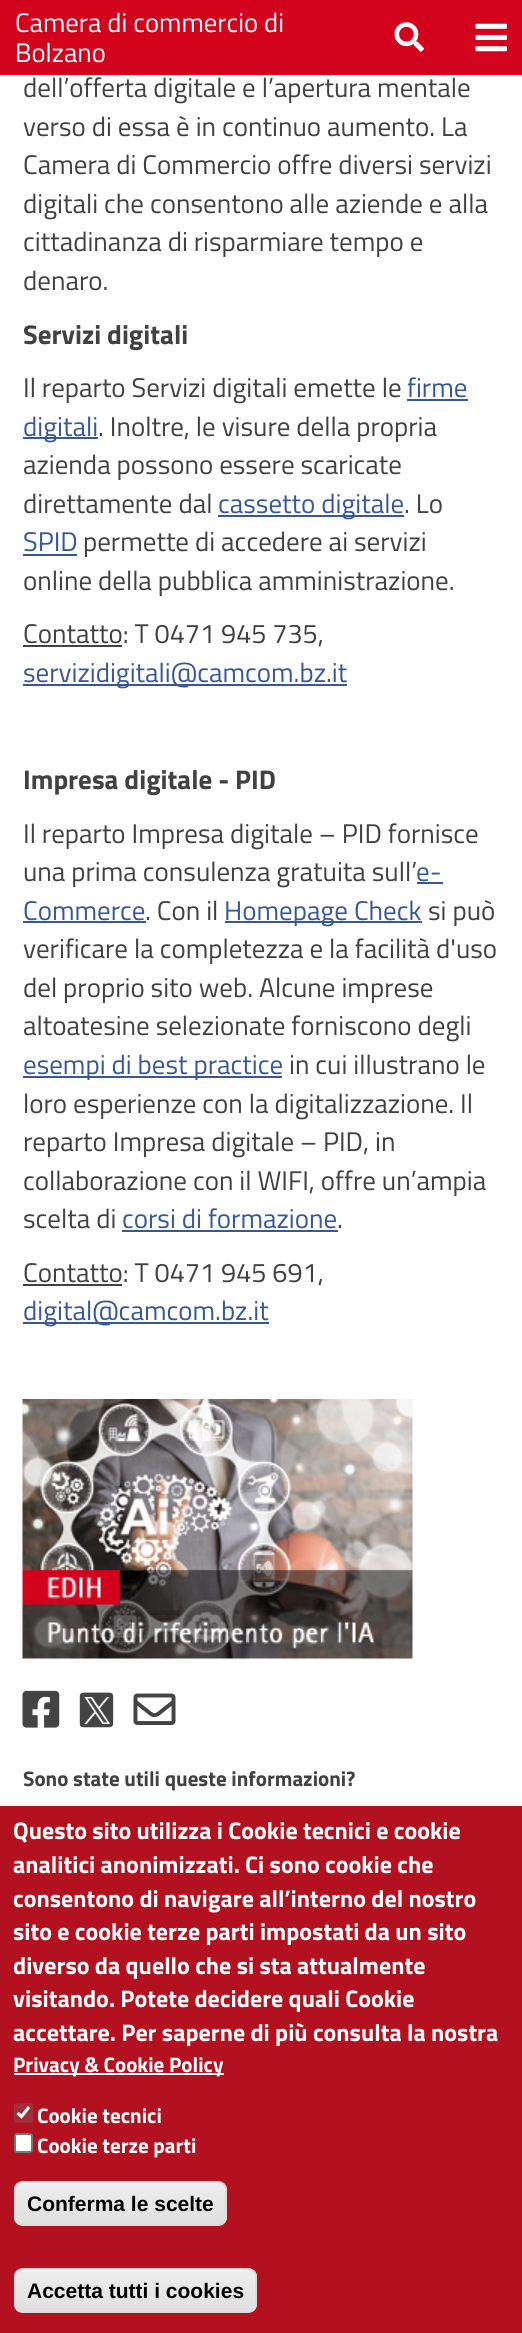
import math
import cairo

surface = cairo.ImageSurface(cairo.Format.RGB24, 522, 2333)
ctx = cairo.Context(surface)
options = cairo.FontOptions()
options.set_hint_metrics(cairo.HintMetrics.OFF)
options.set_hint_style(cairo.HintStyle.NONE)
ctx.set_font_options(options)
ctx.set_miter_limit(4)


def ink(r, g, b):
    ctx.set_source_rgb(r / 255, g / 255, b / 255)


def write(x, y, s, family, size, color, bold=False, italic=False):
    ctx.select_font_face(family, cairo.FontSlant.ITALIC if italic else cairo.FontSlant.NORMAL, cairo.FontWeight.BOLD if bold else cairo.FontWeight.NORMAL)
    ctx.set_font_size(size)
    ink(*color)
    ctx.move_to(x, y)
    ctx.show_text(s)


def block(x, y, w, h, *color):
    ink(*color)
    ctx.rectangle(x, y, w, h)
    ctx.fill()


def round_path(x, y, w, h, r):
    ctx.new_sub_path()
    for i, (u, v) in enumerate([(x + w - r, y + h - r), (x + r, y + h - r), (x + r, y + r), (x + w - r, y + r)]):
        ctx.arc(u, v, r, i * math.pi / 2, (i + 1) * math.pi / 2)
    ctx.close_path()


def paste(path, x, y, w, h):
    ctx.save()
    ctx.set_source_surface(cairo.ImageSurface.create_from_png(path), x, y)
    ctx.rectangle(x, y, w, h)
    ctx.fill()
    ctx.restore()


s1 = dict(family="Titillium Web", size=26.75, color=(255, 255, 255))
s2 = dict(family="Titillium Web", size=27, color=(65, 65, 65))
s3 = dict(family="Titillium Web", size=27, color=(65, 65, 65), bold=True)
s4 = dict(family="Titillium Web", size=27, color=(54, 88, 153))
s5 = dict(family="Titillium Web", size=21, color=(65, 65, 65), bold=True)
s6 = dict(family="Titillium Web", size=24, color=(255, 255, 255), bold=True)
s7 = dict(family="Titillium Web", size=21, color=(255, 255, 255), bold=True)
s8 = dict(family="Liberation Sans", size=21, color=(0, 0, 0), bold=True)

ink(255, 255, 255)
ctx.paint()
block(0, 0, 522, 75, 211, 2, 29)
write(15, 32, "Camera di commercio di", **s1)
write(15, 62, "Bolzano", **s1)
paste("pic1.png", 394, 22, 30, 30)
paste("pic2.png", 475, 23, 32, 29)
write(23, 97, "dell’offerta digitale e l’apertura mentale", **s2)
write(23, 136, "verso di essa è in continuo aumento. La", **s2)
write(23, 174, "Camera di Commercio offre diversi servizi", **s2)
write(23, 213, "digitali che consentono alle aziende e alla", **s2)
write(23, 251, "cittadinanza di risparmiare tempo e", **s2)
write(23, 290, "denaro.", **s2)
write(23, 344, "Servizi digitali", **s3)
write(23, 397, "Il reparto Servizi digitali emette le", **s2)
write(407, 397, "firme", **s4)
block(407, 399, 61, 2, 54, 88, 153)
block(23, 437, 75, 2, 54, 88, 153)
write(23, 436, "digitali", **s4)
write(98, 436, ". Inoltre, le visure della propria", **s2)
write(23, 474, "azienda possono essere scaricate", **s2)
write(23, 513, "direttamente dal", **s2)
block(218, 515, 186, 2, 54, 88, 153)
write(218, 513, "cassetto digitale", **s4)
write(404, 513, ". Lo", **s2)
write(23, 551, "SPID", **s4)
block(23, 554, 54, 2, 54, 88, 153)
write(83, 551, "permette di accedere ai servizi", **s2)
write(23, 590, "online della pubblica amministrazione.", **s2)
block(23, 645, 99, 2, 65, 65, 65)
write(23, 643, "Contatto: T 0471 945 735,", **s2)
block(23, 684, 324, 2, 54, 88, 153)
write(23, 682, "servizidigitali@camcom.bz.it", **s4)
write(23, 789, "Impresa digitale - PID", **s3)
write(23, 843, "Il reparto Impresa digitale – PID fornisce", **s2)
write(23, 881, "una prima consulenza gratuita sull’", **s2)
write(416, 881, "e-", **s4)
block(417, 882, 26, 2, 54, 88, 153)
write(23, 920, "Commerce", **s4)
block(23, 921, 123, 2, 54, 88, 153)
write(145, 920, ". Con il", **s2)
block(225, 921, 197, 2, 54, 88, 153)
write(224, 920, "Homepage Check", **s4)
write(428, 920, "si può", **s2)
write(23, 958, "verificare la completezza e la facilità d'uso", **s2)
write(23, 997, "del proprio sito web. Alcune imprese", **s2)
write(23, 1035, "altoatesine selezionate forniscono degli", **s2)
block(23, 1076, 259, 2, 54, 88, 153)
write(23, 1074, "esempi di best practice", **s4)
write(289, 1074, "in cui illustrano le", **s2)
write(23, 1113, "loro esperienze con la digitalizzazione. Il", **s2)
write(23, 1151, "reparto Impresa digitale – PID, in", **s2)
write(23, 1190, "collaborazione con il WIFI, offre un’ampia", **s2)
write(23, 1228, "scelta di", **s2)
write(122, 1228, "corsi di formazione", **s4)
block(122, 1230, 216, 2, 54, 88, 153)
write(337, 1228, ".", **s2)
block(23, 1284, 99, 2, 65, 65, 65)
write(23, 1282, "Contatto: T 0471 945 691,", **s2)
block(23, 1322, 246, 2, 54, 88, 153)
write(23, 1320, "digital@camcom.bz.it", **s4)
paste("pic3.png", 22, 1399, 391, 260)
paste("pic4.png", 22, 1690, 38, 38)
paste("pic5.png", 79, 1692, 35, 36)
paste("pic6.png", 133, 1693, 43, 32)
write(23, 1786, "Sono state utili queste informazioni?", **s5)
block(0, 1806, 522, 527, 179, 17, 32)
write(13, 1839, "Questo sito utilizza i Cookie tecnici e cookie", **s6)
write(13, 1873, "analitici anonimizzati. Ci sono cookie che", **s6)
write(13, 1907, "consentono di navigare all’interno del nostro", **s6)
write(13, 1940, "sito e cookie terze parti impostati da un sito", **s6)
write(13, 1974, "diverso da quello che si sta attualmente", **s6)
write(13, 2007, "visitando. Potete decidere quali Cookie", **s6)
write(13, 2041, "accettare. Per saperne di più consulta la nostra", **s6)
block(14, 2073, 210, 2, 255, 255, 255)
write(13, 2072, "Privacy & Cookie Policy", **s7)
ink(161, 47, 58)
round_path(14, 2103, 19, 20, 3)
ctx.fill()
ctx.new_path()
ctx.move_to(17.5, 2113)
ctx.line_to(21.5, 2116.5)
ctx.line_to(29, 2107)
ink(255, 255, 255)
ctx.set_line_width(3.1)
ctx.stroke()
write(37, 2123, "Cookie tecnici", **s7)
round_path(15, 2134, 17, 18, 2)
ctx.fill_preserve()
ink(118, 118, 118)
ctx.set_line_width(2)
ctx.stroke()
write(37, 2153, "Cookie terze parti", **s7)
ctx.save()
round_path(14, 2181, 213, 45, 9)
ctx.clip()
gradient = cairo.LinearGradient(120, 2183, 120, 2225)
gradient.add_color_stop_rgba(0.05, 0.929, 0.929, 0.929, 1)
gradient.add_color_stop_rgba(1, 0.875, 0.875, 0.875, 1)
ctx.set_source(gradient)
ctx.rectangle(14, 2183, 213, 42)
ctx.fill()
ctx.restore()
ctx.new_path()
ctx.move_to(22, 2184)
ctx.line_to(218, 2184)
ctx.curve_to(222, 2184, 225, 2187, 225, 2192)
ctx.line_to(225, 2191)
ctx.curve_to(225, 2187, 221, 2183, 217, 2183)
ctx.line_to(23, 2183)
ctx.curve_to(19, 2183, 15, 2187, 15, 2191)
ctx.line_to(15, 2192)
ctx.curve_to(15, 2187, 18, 2184, 22, 2184)
ctx.close_path()
ctx.fill()
round_path(15, 2182, 211, 43, 8)
ink(220, 220, 220)
ctx.stroke()
write(27, 2211, "Conferma le scelte", **s8)
ctx.save()
round_path(14, 2268, 243, 45, 9)
ctx.clip()
gradient = cairo.LinearGradient(135, 2270, 135, 2312)
gradient.add_color_stop_rgba(0.05, 0.929, 0.929, 0.929, 1)
gradient.add_color_stop_rgba(1, 0.875, 0.875, 0.875, 1)
ctx.set_source(gradient)
ctx.rectangle(14, 2270, 243, 42)
ctx.fill()
ctx.restore()
ink(255, 255, 255)
ctx.new_path()
ctx.move_to(22, 2271)
ctx.line_to(248, 2271)
ctx.curve_to(252, 2271, 255, 2274, 255, 2278)
ctx.curve_to(255, 2274, 251, 2270, 247, 2270)
ctx.line_to(23, 2270)
ctx.curve_to(19, 2270, 15, 2274, 15, 2278)
ctx.curve_to(15, 2274, 18, 2271, 22, 2271)
ctx.close_path()
ctx.fill()
round_path(15, 2269, 241, 43, 8)
ink(220, 220, 220)
ctx.stroke()
write(27, 2298, "Accetta tutti i cookies", **s8)
surface.write_to_png("screenshot.png")
